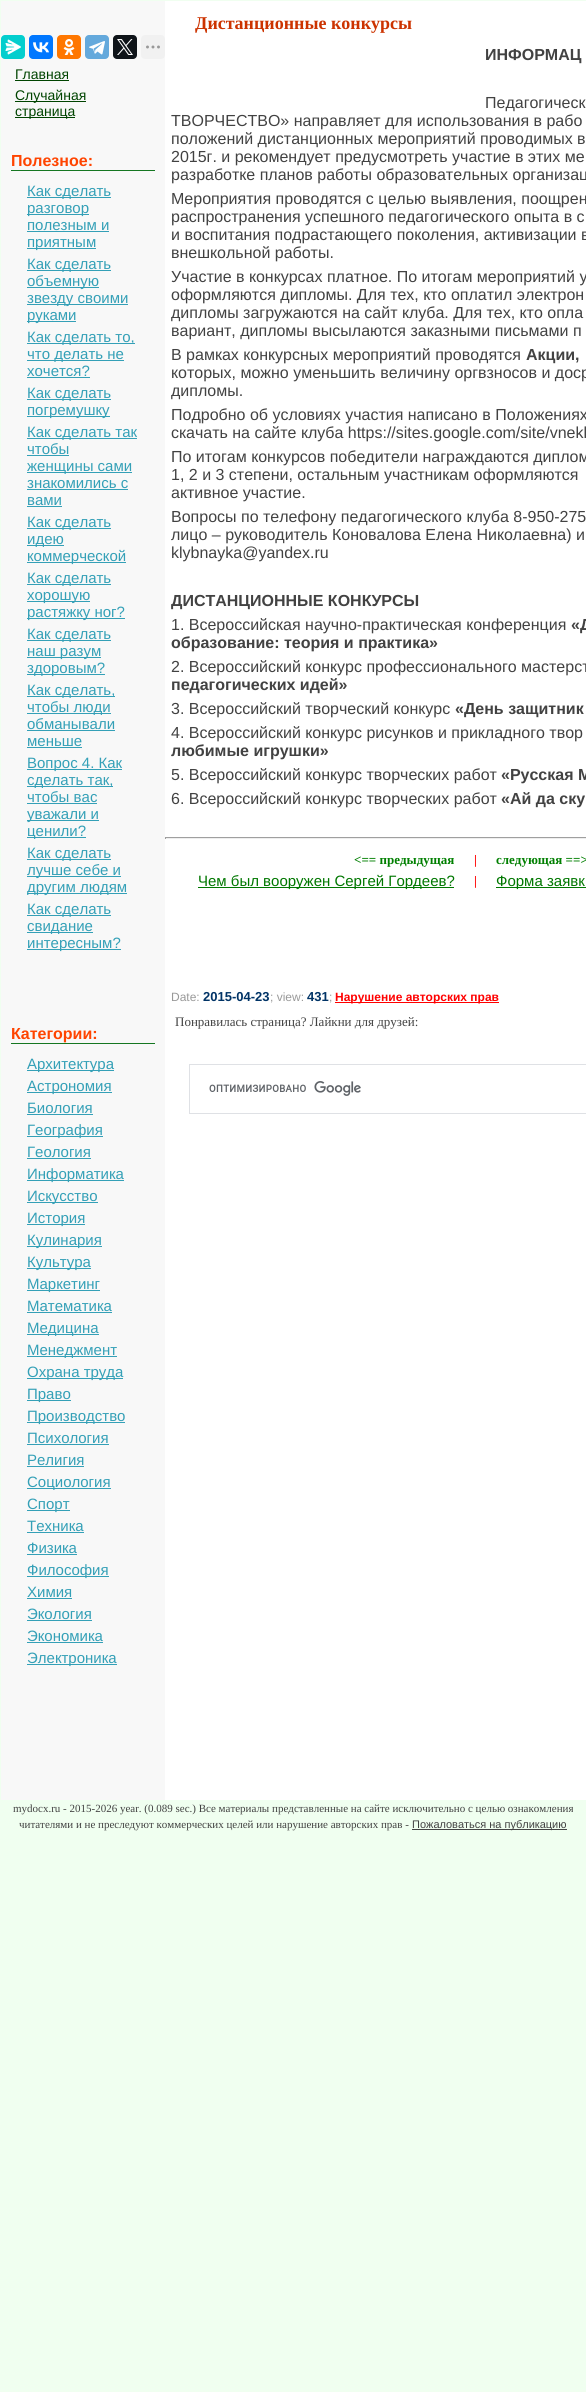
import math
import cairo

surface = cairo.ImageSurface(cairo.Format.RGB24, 586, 2392)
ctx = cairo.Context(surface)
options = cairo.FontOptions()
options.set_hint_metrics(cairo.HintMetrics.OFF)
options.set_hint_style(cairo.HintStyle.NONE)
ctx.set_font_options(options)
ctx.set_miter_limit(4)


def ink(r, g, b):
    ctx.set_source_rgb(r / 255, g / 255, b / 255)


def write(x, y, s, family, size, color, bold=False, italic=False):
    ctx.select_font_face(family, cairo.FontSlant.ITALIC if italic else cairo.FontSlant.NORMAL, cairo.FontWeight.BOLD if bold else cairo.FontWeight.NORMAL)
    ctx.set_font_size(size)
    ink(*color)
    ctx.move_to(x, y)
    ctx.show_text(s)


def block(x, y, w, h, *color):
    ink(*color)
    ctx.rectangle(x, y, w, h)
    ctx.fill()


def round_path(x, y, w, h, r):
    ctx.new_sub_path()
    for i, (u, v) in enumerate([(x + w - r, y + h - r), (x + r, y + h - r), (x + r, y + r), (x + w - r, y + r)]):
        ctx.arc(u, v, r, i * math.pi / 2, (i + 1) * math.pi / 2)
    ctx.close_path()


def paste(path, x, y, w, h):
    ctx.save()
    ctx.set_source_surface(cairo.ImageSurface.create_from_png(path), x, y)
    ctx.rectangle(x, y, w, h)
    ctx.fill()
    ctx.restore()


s1 = dict(family="Liberation Sans", size=14, color=(0, 68, 0))
s2 = dict(family="Liberation Sans", size=16, color=(255, 68, 0), bold=True)
s3 = dict(family="Liberation Sans", size=15, color=(52, 160, 183))
s4 = dict(family="Liberation Serif", size=18, color=(204, 51, 0), bold=True)
s5 = dict(family="Liberation Sans", size=16, color=(66, 66, 66), bold=True)
s6 = dict(family="Liberation Sans", size=16, color=(66, 66, 66))
s7 = dict(family="Liberation Serif", size=13, color=(0, 127, 0), bold=True)
s8 = dict(family="Liberation Serif", size=13, color=(255, 0, 0), bold=True)
s9 = dict(family="Liberation Sans", size=15, color=(0, 119, 0))
s10 = dict(family="Liberation Sans", size=12, color=(153, 153, 153))
s11 = dict(family="Liberation Sans", size=13, color=(0, 51, 102), bold=True)
s12 = dict(family="Liberation Sans", size=12, color=(255, 0, 0), bold=True)
s13 = dict(family="Liberation Serif", size=13, color=(66, 66, 66))
s14 = dict(family="Liberation Serif", size=11, color=(66, 66, 66))
s15 = dict(family="Liberation Sans", size=11, color=(66, 66, 66))

ink(240, 255, 240)
ctx.paint()
block(1, 1, 164, 1799, 248, 248, 248)
ink(3, 206, 206)
round_path(1, 35, 24, 24, 4)
ctx.fill()
paste("pic1.png", 5, 39, 16, 16)
ink(0, 119, 255)
round_path(29, 35, 24, 24, 4)
ctx.fill()
paste("pic2.png", 33, 42, 16, 11)
ink(255, 119, 0)
round_path(57, 35, 24, 24, 4)
ctx.fill()
paste("pic3.png", 63, 39, 12, 16)
ink(100, 169, 220)
round_path(85, 35, 24, 24, 4)
ctx.fill()
paste("pic4.png", 89, 41, 16, 14)
ink(15, 20, 25)
round_path(113, 35, 24, 24, 4)
ctx.fill()
paste("pic5.png", 117, 39, 16, 16)
ink(241, 241, 241)
round_path(141, 35, 24, 24, 4)
ctx.fill()
paste("pic6.png", 146, 45, 14, 4)
write(15, 79, "Главная", **s1)
block(15, 80, 54, 1, 0, 68, 0)
block(15, 101, 71, 1, 0, 68, 0)
write(15, 100, "Случайная", **s1)
block(15, 117, 60, 1, 0, 68, 0)
write(15, 116, "страница", **s1)
block(11, 170, 144, 1, 21, 119, 33)
write(11, 166, "Полезное:", **s2)
block(27, 197, 84, 1, 52, 160, 183)
write(27, 196, "Как сделать", **s3)
block(27, 214, 62, 1, 52, 160, 183)
write(27, 213, "разговор", **s3)
write(27, 230, "полезным и", **s3)
block(27, 231, 82, 1, 52, 160, 183)
block(27, 248, 69, 1, 52, 160, 183)
write(27, 247, "приятным", **s3)
block(27, 270, 84, 1, 52, 160, 183)
write(27, 269, "Как сделать", **s3)
block(27, 287, 72, 1, 52, 160, 183)
write(27, 286, "объемную", **s3)
block(27, 304, 101, 1, 52, 160, 183)
write(27, 303, "звезду своими", **s3)
block(27, 321, 49, 1, 52, 160, 183)
write(27, 320, "руками", **s3)
block(27, 343, 108, 1, 52, 160, 183)
write(27, 342, "Как сделать то,", **s3)
block(27, 360, 97, 1, 52, 160, 183)
write(27, 359, "что делать не", **s3)
write(27, 376, "хочется?", **s3)
block(27, 377, 63, 1, 52, 160, 183)
block(27, 399, 84, 1, 52, 160, 183)
write(27, 398, "Как сделать", **s3)
block(27, 416, 83, 1, 52, 160, 183)
write(27, 415, "погремушку", **s3)
block(27, 438, 110, 1, 52, 160, 183)
write(27, 437, "Как сделать так", **s3)
write(27, 454, "чтобы", **s3)
block(27, 455, 42, 1, 52, 160, 183)
block(27, 472, 105, 1, 52, 160, 183)
write(27, 471, "женщины сами", **s3)
write(27, 488, "знакомились с", **s3)
block(27, 489, 101, 1, 52, 160, 183)
write(27, 505, "вами", **s3)
block(27, 506, 35, 1, 52, 160, 183)
block(27, 528, 84, 1, 52, 160, 183)
write(27, 527, "Как сделать", **s3)
block(27, 545, 37, 1, 52, 160, 183)
write(27, 544, "идею", **s3)
block(27, 562, 99, 1, 52, 160, 183)
write(27, 561, "коммерческой", **s3)
block(27, 584, 84, 1, 52, 160, 183)
write(27, 583, "Как сделать", **s3)
block(27, 601, 63, 1, 52, 160, 183)
write(27, 600, "хорошую", **s3)
block(27, 618, 98, 1, 52, 160, 183)
write(27, 617, "растяжку ног?", **s3)
block(27, 640, 84, 1, 52, 160, 183)
write(27, 639, "Как сделать", **s3)
block(27, 657, 74, 1, 52, 160, 183)
write(27, 656, "наш разум", **s3)
block(27, 674, 78, 1, 52, 160, 183)
write(27, 673, "здоровым?", **s3)
block(27, 696, 88, 1, 52, 160, 183)
write(27, 695, "Как сделать,", **s3)
block(27, 713, 84, 1, 52, 160, 183)
write(27, 712, "чтобы люди", **s3)
write(27, 729, "обманывали", **s3)
block(27, 730, 88, 1, 52, 160, 183)
write(27, 746, "меньше", **s3)
block(27, 747, 55, 1, 52, 160, 183)
block(27, 769, 95, 1, 52, 160, 183)
write(27, 768, "Вопрос 4. Как", **s3)
block(27, 786, 86, 1, 52, 160, 183)
write(27, 785, "сделать так,", **s3)
write(27, 802, "чтобы вас", **s3)
block(27, 803, 70, 1, 52, 160, 183)
block(27, 820, 72, 1, 52, 160, 183)
write(27, 819, "уважали и", **s3)
block(27, 837, 59, 1, 52, 160, 183)
write(27, 836, "ценили?", **s3)
block(27, 859, 84, 1, 52, 160, 183)
write(27, 858, "Как сделать", **s3)
block(27, 876, 94, 1, 52, 160, 183)
write(27, 875, "лучше себе и", **s3)
block(27, 893, 100, 1, 52, 160, 183)
write(27, 892, "другим людям", **s3)
block(27, 915, 84, 1, 52, 160, 183)
write(27, 914, "Как сделать", **s3)
block(27, 932, 66, 1, 52, 160, 183)
write(27, 931, "свидание", **s3)
block(27, 949, 94, 1, 52, 160, 183)
write(27, 948, "интересным?", **s3)
block(11, 1043, 144, 1, 21, 119, 33)
write(11, 1039, "Категории:", **s2)
block(27, 1070, 87, 1, 52, 160, 183)
write(27, 1069, "Архитектура", **s3)
block(27, 1092, 85, 1, 52, 160, 183)
write(27, 1091, "Астрономия", **s3)
write(27, 1113, "Биология", **s3)
block(27, 1114, 66, 1, 52, 160, 183)
block(27, 1136, 76, 1, 52, 160, 183)
write(27, 1135, "География", **s3)
write(27, 1157, "Геология", **s3)
block(27, 1158, 64, 1, 52, 160, 183)
block(27, 1180, 97, 1, 52, 160, 183)
write(27, 1179, "Информатика", **s3)
block(27, 1202, 71, 1, 52, 160, 183)
write(27, 1201, "Искусство", **s3)
block(27, 1224, 58, 1, 52, 160, 183)
write(27, 1223, "История", **s3)
block(27, 1246, 75, 1, 52, 160, 183)
write(27, 1245, "Кулинария", **s3)
block(27, 1268, 64, 1, 52, 160, 183)
write(27, 1267, "Культура", **s3)
block(27, 1290, 73, 1, 52, 160, 183)
write(27, 1289, "Маркетинг", **s3)
write(27, 1311, "Математика", **s3)
block(27, 1312, 85, 1, 52, 160, 183)
block(27, 1334, 72, 1, 52, 160, 183)
write(27, 1333, "Медицина", **s3)
block(27, 1356, 90, 1, 52, 160, 183)
write(27, 1355, "Менеджмент", **s3)
block(27, 1378, 96, 1, 52, 160, 183)
write(27, 1377, "Охрана труда", **s3)
block(27, 1400, 44, 1, 52, 160, 183)
write(27, 1399, "Право", **s3)
block(27, 1422, 98, 1, 52, 160, 183)
write(27, 1421, "Производство", **s3)
write(27, 1443, "Психология", **s3)
block(27, 1444, 82, 1, 52, 160, 183)
write(27, 1465, "Религия", **s3)
block(27, 1466, 57, 1, 52, 160, 183)
block(27, 1488, 84, 1, 52, 160, 183)
write(27, 1487, "Социология", **s3)
block(27, 1510, 43, 1, 52, 160, 183)
write(27, 1509, "Спорт", **s3)
write(27, 1531, "Техника", **s3)
block(27, 1532, 57, 1, 52, 160, 183)
write(27, 1553, "Физика", **s3)
block(27, 1554, 50, 1, 52, 160, 183)
block(27, 1576, 82, 1, 52, 160, 183)
write(27, 1575, "Философия", **s3)
write(27, 1597, "Химия", **s3)
block(27, 1598, 45, 1, 52, 160, 183)
write(27, 1619, "Экология", **s3)
block(27, 1620, 65, 1, 52, 160, 183)
write(27, 1641, "Экономика", **s3)
block(27, 1642, 76, 1, 52, 160, 183)
block(27, 1664, 90, 1, 52, 160, 183)
write(27, 1663, "Электроника", **s3)
block(165, 1, 421, 1799, 255, 255, 255)
write(195, 29, "Дистанционные конкурсы", **s4)
write(485, 60, "ИНФОРМАЦ", **s5)
write(485, 108, "Педагогическ", **s6)
write(171, 126, "ТВОРЧЕСТВО» направляет для использования в рабо", **s6)
write(171, 144, "положений дистанционных мероприятий проводимых в", **s6)
write(171, 162, "2015г. и рекомендует предусмотреть участие в этих ме", **s6)
write(171, 180, "разработке планов работы образовательных организац", **s6)
write(171, 204, "Мероприятия проводятся с целью выявления, поощрен", **s6)
write(171, 222, "распространения успешного педагогического опыта в с", **s6)
write(171, 240, "и воспитания подрастающего поколения, активизации в", **s6)
write(171, 258, "внешкольной работы.", **s6)
write(171, 282, "Участие в конкурсах платное. По итогам мероприятий у", **s6)
write(171, 300, "оформляются дипломы. Для тех, кто оплатил электрон", **s6)
write(171, 318, "дипломы загружаются на сайт клуба. Для тех, кто опла", **s6)
write(171, 336, "вариант, дипломы высылаются заказными письмами п", **s6)
write(171, 360, "В рамках конкурсных мероприятий проводятся", **s6)
write(526, 360, "Акции,", **s5)
write(171, 378, "которых, можно уменьшить величину оргвзносов и доср", **s6)
write(171, 396, "дипломы.", **s6)
write(171, 420, "Подробно об условиях участия написано в Положениях", **s6)
write(171, 438, "скачать на сайте клуба https://sites.google.com/site/vnekl", **s6)
write(171, 462, "По итогам конкурсов победители награждаются диплом", **s6)
write(171, 480, "1, 2 и 3 степени, остальным участникам оформляются", **s6)
write(171, 498, "активное участие.", **s6)
write(171, 522, "Вопросы по телефону педагогического клуба 8-950-275", **s6)
write(171, 540, "лицо – руководитель Коновалова Елена Николаевна) и", **s6)
write(171, 558, "klybnayka@yandex.ru", **s6)
write(171, 606, "ДИСТАНЦИОННЫЕ КОНКУРСЫ", **s5)
write(171, 630, "1. Всероссийская научно-практическая конференция", **s6)
write(571, 630, "«Д", **s5)
write(171, 648, "образование: теория и практика»", **s5)
write(171, 672, "2. Всероссийский конкурс профессионального мастерст", **s6)
write(171, 690, "педагогических идей»", **s5)
write(171, 714, "3. Всероссийский творческий конкурс", **s6)
write(455, 714, "«День защитник", **s5)
write(171, 738, "4. Всероссийский конкурс рисунков и прикладного твор", **s6)
write(171, 756, "любимые игрушки»", **s5)
write(171, 780, "5. Всероссийский конкурс творческих работ", **s6)
write(501, 780, "«Русская М", **s5)
write(171, 804, "6. Всероссийский конкурс творческих работ", **s6)
write(501, 804, "«Ай да ску", **s5)
block(165, 837, 421, 1, 159, 159, 159)
block(165, 838, 421, 1, 238, 238, 238)
block(165, 837, 1, 2, 159, 159, 159)
write(354, 864, "<== предыдущая", **s7)
write(474, 864, "|", **s8)
write(496, 864, "следующая ==>", **s7)
block(198, 887, 256, 1, 0, 119, 0)
write(198, 886, "Чем был вооружен Сергей Гордеев?", **s9)
write(474, 885, "|", **s8)
block(496, 887, 90, 1, 0, 119, 0)
write(496, 886, "Форма заявк", **s9)
write(171, 1001, "Date:", **s10)
write(203, 1001, "2015-04-23", **s11)
write(270, 1001, "; view:", **s10)
write(307, 1001, "431", **s11)
write(329, 1001, ";", **s10)
block(335, 1002, 164, 1, 255, 0, 0)
write(335, 1001, "Нарушение авторских прав", **s12)
write(175, 1026, "Понравилась страница? Лайкни для друзей:", **s13)
ctx.rectangle(189.5, 1064.5, 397, 49)
ink(223, 225, 229)
ctx.set_line_width(1)
ctx.stroke()
paste("pic7.png", 209, 1081, 152, 15)
write(13, 1812, "mydocx.ru - 2015-2026 year. (0.089 sec.) Все материалы представленные на сайте исключительно с целью ознакомления", **s14)
write(19, 1828, "читателями и не преследуют коммерческих целей или нарушение авторских прав -", **s14)
block(412, 1829, 155, 1, 68, 68, 68)
write(412, 1828, "Пожаловаться на публикацию", **s15)
surface.write_to_png("screenshot.png")
